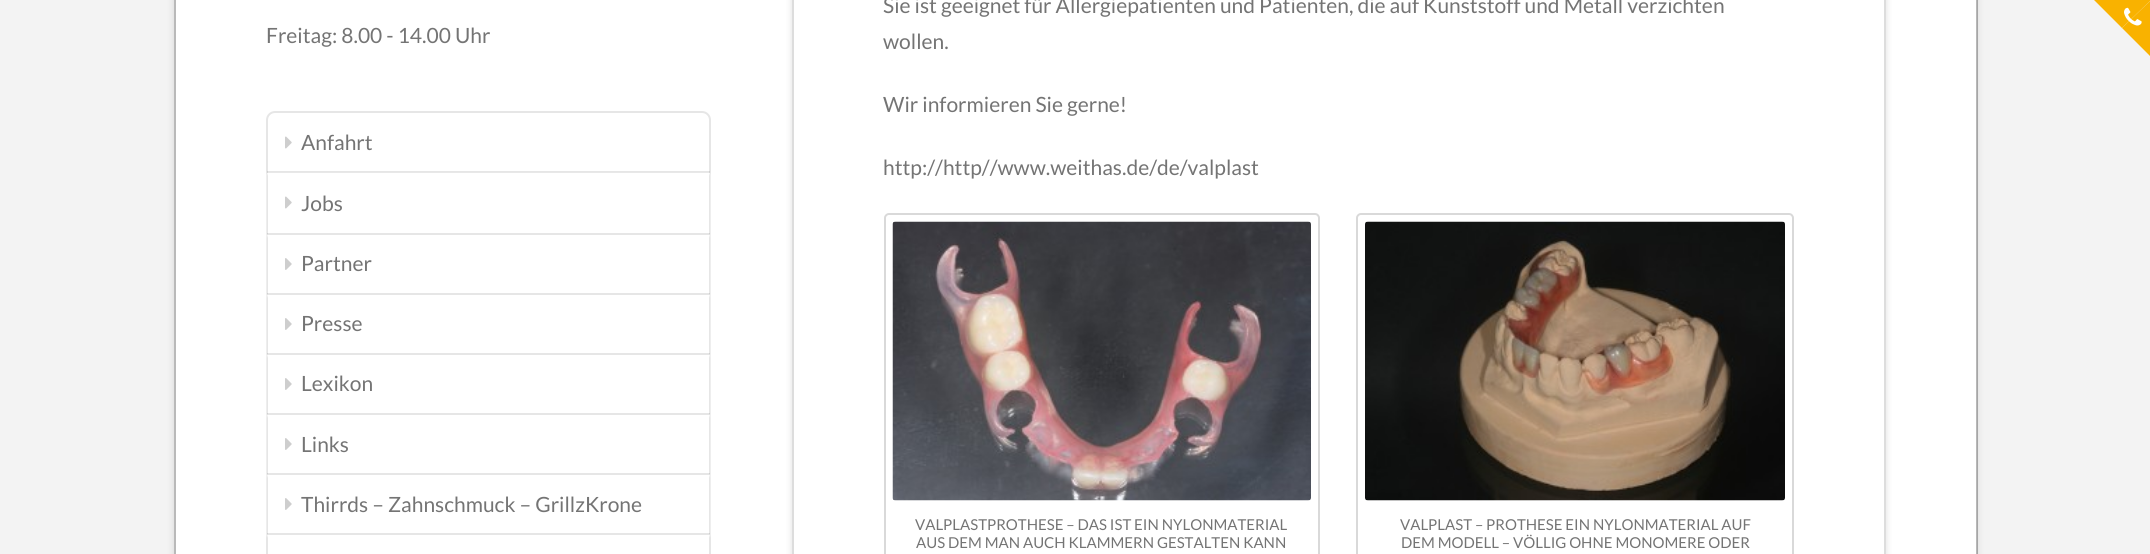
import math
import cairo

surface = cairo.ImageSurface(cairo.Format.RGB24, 2150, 554)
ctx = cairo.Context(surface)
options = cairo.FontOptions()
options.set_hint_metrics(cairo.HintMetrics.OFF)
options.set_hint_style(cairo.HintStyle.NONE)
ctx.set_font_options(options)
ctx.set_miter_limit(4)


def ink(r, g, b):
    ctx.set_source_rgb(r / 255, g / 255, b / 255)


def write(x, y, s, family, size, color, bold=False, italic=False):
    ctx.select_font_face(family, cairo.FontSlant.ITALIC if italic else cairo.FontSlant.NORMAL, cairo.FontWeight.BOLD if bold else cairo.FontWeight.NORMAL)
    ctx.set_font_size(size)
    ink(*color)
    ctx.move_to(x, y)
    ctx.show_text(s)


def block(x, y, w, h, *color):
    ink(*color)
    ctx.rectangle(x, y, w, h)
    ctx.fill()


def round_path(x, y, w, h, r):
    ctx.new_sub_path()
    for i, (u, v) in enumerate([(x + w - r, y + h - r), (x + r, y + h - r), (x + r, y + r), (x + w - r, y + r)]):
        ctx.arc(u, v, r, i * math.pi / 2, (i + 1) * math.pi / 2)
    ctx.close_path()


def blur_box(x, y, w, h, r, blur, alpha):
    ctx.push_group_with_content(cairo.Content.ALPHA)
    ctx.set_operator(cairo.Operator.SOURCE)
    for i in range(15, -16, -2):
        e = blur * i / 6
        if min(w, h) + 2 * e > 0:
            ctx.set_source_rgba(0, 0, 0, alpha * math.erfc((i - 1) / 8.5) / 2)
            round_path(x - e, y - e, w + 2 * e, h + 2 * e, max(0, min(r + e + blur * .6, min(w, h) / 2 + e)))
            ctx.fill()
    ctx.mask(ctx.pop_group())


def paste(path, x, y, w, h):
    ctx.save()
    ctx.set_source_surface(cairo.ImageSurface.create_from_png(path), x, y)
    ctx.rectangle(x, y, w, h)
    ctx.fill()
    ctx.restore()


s1 = dict(family="Lato", size=21, color=(116, 116, 116))
s2 = dict(family="Lato", size=15, color=(116, 116, 116))

ink(243, 243, 243)
ctx.paint()
ink(0, 0, 0)
blur_box(174, -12, 1803, 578, 0, 4, 0.12)
block(176, 0, 1801, 554, 255, 255, 255)
ctx.set_source_rgba(0, 0, 0, 0.28)
ctx.rectangle(1976, 0, 2, 554)
ctx.fill()
block(174, 0, 2, 554, 185, 185, 185)
write(266, 43, "Freitag: 8.00 - 14.00 Uhr", **s1)
round_path(267, 112, 443, 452, 8)
ink(230, 230, 230)
ctx.stroke()
ctx.save()
round_path(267, 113, 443, 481, 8)
ctx.clip()
ctx.set_fill_rule(cairo.FillRule.EVEN_ODD)
ctx.new_path()
ctx.move_to(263, 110)
ctx.line_to(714, 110)
ctx.line_to(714, 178)
ctx.line_to(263, 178)
ctx.close_path()
ctx.move_to(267, 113)
ctx.line_to(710, 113)
ctx.line_to(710, 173)
ctx.line_to(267, 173)
ctx.close_path()
ctx.clip()
ink(255, 255, 255)
blur_box(267, 114, 443, 60, 0, 1, 0.95)
ctx.restore()
ctx.set_source_rgba(0, 0, 0, 0.1)
ctx.rectangle(267, 171, 443, 2)
ctx.fill()
paste("pic1.png", 285, 136, 7, 13)
write(301, 150, "Anfahrt", **s1)
ctx.save()
ctx.set_fill_rule(cairo.FillRule.EVEN_ODD)
ctx.new_path()
ctx.move_to(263, 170)
ctx.line_to(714, 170)
ctx.line_to(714, 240)
ctx.line_to(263, 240)
ctx.close_path()
ctx.move_to(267, 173)
ctx.line_to(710, 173)
ctx.line_to(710, 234)
ctx.line_to(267, 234)
ctx.close_path()
ctx.clip()
ink(255, 255, 255)
blur_box(267, 174, 443, 62, 0, 1, 0.95)
ctx.restore()
ctx.set_source_rgba(0, 0, 0, 0.1)
ctx.rectangle(267, 233, 443, 2)
ctx.fill()
paste("pic1.png", 285, 196, 7, 13)
write(301, 211, "Jobs", **s1)
ctx.save()
ctx.set_fill_rule(cairo.FillRule.EVEN_ODD)
ctx.new_path()
ctx.move_to(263, 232)
ctx.line_to(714, 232)
ctx.line_to(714, 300)
ctx.line_to(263, 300)
ctx.close_path()
ctx.move_to(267, 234)
ctx.line_to(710, 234)
ctx.line_to(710, 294)
ctx.line_to(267, 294)
ctx.close_path()
ctx.clip()
ink(255, 255, 255)
blur_box(267, 236, 443, 60, 0, 1, 0.95)
ctx.restore()
ctx.set_source_rgba(0, 0, 0, 0.1)
ctx.rectangle(267, 293, 443, 2)
ctx.fill()
paste("pic2.png", 285, 258, 7, 12)
write(301, 271, "Partner", **s1)
ctx.save()
ctx.set_fill_rule(cairo.FillRule.EVEN_ODD)
ctx.new_path()
ctx.move_to(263, 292)
ctx.line_to(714, 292)
ctx.line_to(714, 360)
ctx.line_to(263, 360)
ctx.close_path()
ctx.move_to(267, 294)
ctx.line_to(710, 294)
ctx.line_to(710, 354)
ctx.line_to(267, 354)
ctx.close_path()
ctx.clip()
ink(255, 255, 255)
blur_box(267, 296, 443, 60, 0, 1, 0.95)
ctx.restore()
ctx.set_source_rgba(0, 0, 0, 0.1)
ctx.rectangle(267, 353, 443, 2)
ctx.fill()
paste("pic2.png", 285, 318, 7, 12)
write(301, 331, "Presse", **s1)
ctx.save()
ctx.set_fill_rule(cairo.FillRule.EVEN_ODD)
ctx.new_path()
ctx.move_to(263, 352)
ctx.line_to(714, 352)
ctx.line_to(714, 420)
ctx.line_to(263, 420)
ctx.close_path()
ctx.move_to(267, 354)
ctx.line_to(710, 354)
ctx.line_to(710, 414)
ctx.line_to(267, 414)
ctx.close_path()
ctx.clip()
ink(255, 255, 255)
blur_box(267, 356, 443, 60, 0, 1, 0.95)
ctx.restore()
ctx.set_source_rgba(0, 0, 0, 0.1)
ctx.rectangle(267, 413, 443, 2)
ctx.fill()
paste("pic2.png", 285, 378, 7, 12)
write(301, 391, "Lexikon", **s1)
ctx.save()
ctx.set_fill_rule(cairo.FillRule.EVEN_ODD)
ctx.new_path()
ctx.move_to(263, 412)
ctx.line_to(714, 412)
ctx.line_to(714, 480)
ctx.line_to(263, 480)
ctx.close_path()
ctx.move_to(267, 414)
ctx.line_to(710, 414)
ctx.line_to(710, 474)
ctx.line_to(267, 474)
ctx.close_path()
ctx.clip()
ink(255, 255, 255)
blur_box(267, 416, 443, 60, 0, 1, 0.95)
ctx.restore()
ctx.set_source_rgba(0, 0, 0, 0.1)
ctx.rectangle(267, 473, 443, 2)
ctx.fill()
paste("pic2.png", 285, 438, 7, 12)
write(301, 452, "Links", **s1)
ctx.save()
ctx.set_fill_rule(cairo.FillRule.EVEN_ODD)
ctx.new_path()
ctx.move_to(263, 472)
ctx.line_to(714, 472)
ctx.line_to(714, 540)
ctx.line_to(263, 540)
ctx.close_path()
ctx.move_to(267, 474)
ctx.line_to(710, 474)
ctx.line_to(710, 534)
ctx.line_to(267, 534)
ctx.close_path()
ctx.clip()
ink(255, 255, 255)
blur_box(267, 476, 443, 60, 0, 1, 0.95)
ctx.restore()
ctx.set_source_rgba(0, 0, 0, 0.1)
ctx.rectangle(267, 533, 443, 2)
ctx.fill()
paste("pic2.png", 285, 498, 7, 12)
write(301, 512, "Thirrds – Zahnschmuck – GrillzKrone", **s1)
ink(0, 0, 0)
blur_box(792, -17, 1094, 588, 6, 3.5, 0.13)
ink(255, 255, 255)
ctx.rectangle(793, -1, 1092, 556)
ctx.fill_preserve()
ink(221, 221, 221)
ctx.stroke()
write(883, 13, "Sie ist geeignet für Allergiepatienten und Patienten, die auf Kunststoff und Metall verzichten", **s1)
write(883, 49, "wollen.", **s1)
write(883, 112, "Wir informieren Sie gerne!", **s1)
write(883, 175, "http://http//www.weithas.de/de/valplast", **s1)
round_path(885, 214, 434, 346, 4)
ink(217, 217, 217)
ctx.stroke()
paste("pic3.png", 892, 221, 419, 280)
write(915, 530, "VALPLASTPROTHESE – DAS IST EIN NYLONMATERIAL", **s2)
write(916, 548, "AUS DEM MAN AUCH KLAMMERN GESTALTEN KANN", **s2)
round_path(1357, 214, 436, 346, 4)
ink(217, 217, 217)
ctx.stroke()
paste("pic4.png", 1365, 221, 420, 280)
write(1400, 530, "VALPLAST – PROTHESE EIN NYLONMATERIAL AUF", **s2)
write(1401, 548, "DEM MODELL – VÖLLIG OHNE MONOMERE ODER", **s2)
ink(249, 178, 0)
ctx.new_path()
ctx.move_to(2094, 0)
ctx.line_to(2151, 0)
ctx.line_to(2122, 28)
ctx.close_path()
ctx.fill()
ctx.new_path()
ctx.move_to(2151, 0)
ctx.line_to(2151, 57)
ctx.line_to(2122, 28)
ctx.close_path()
ctx.fill()
paste("pic5.png", 2124, 7, 18, 19)
surface.write_to_png("screenshot.png")
